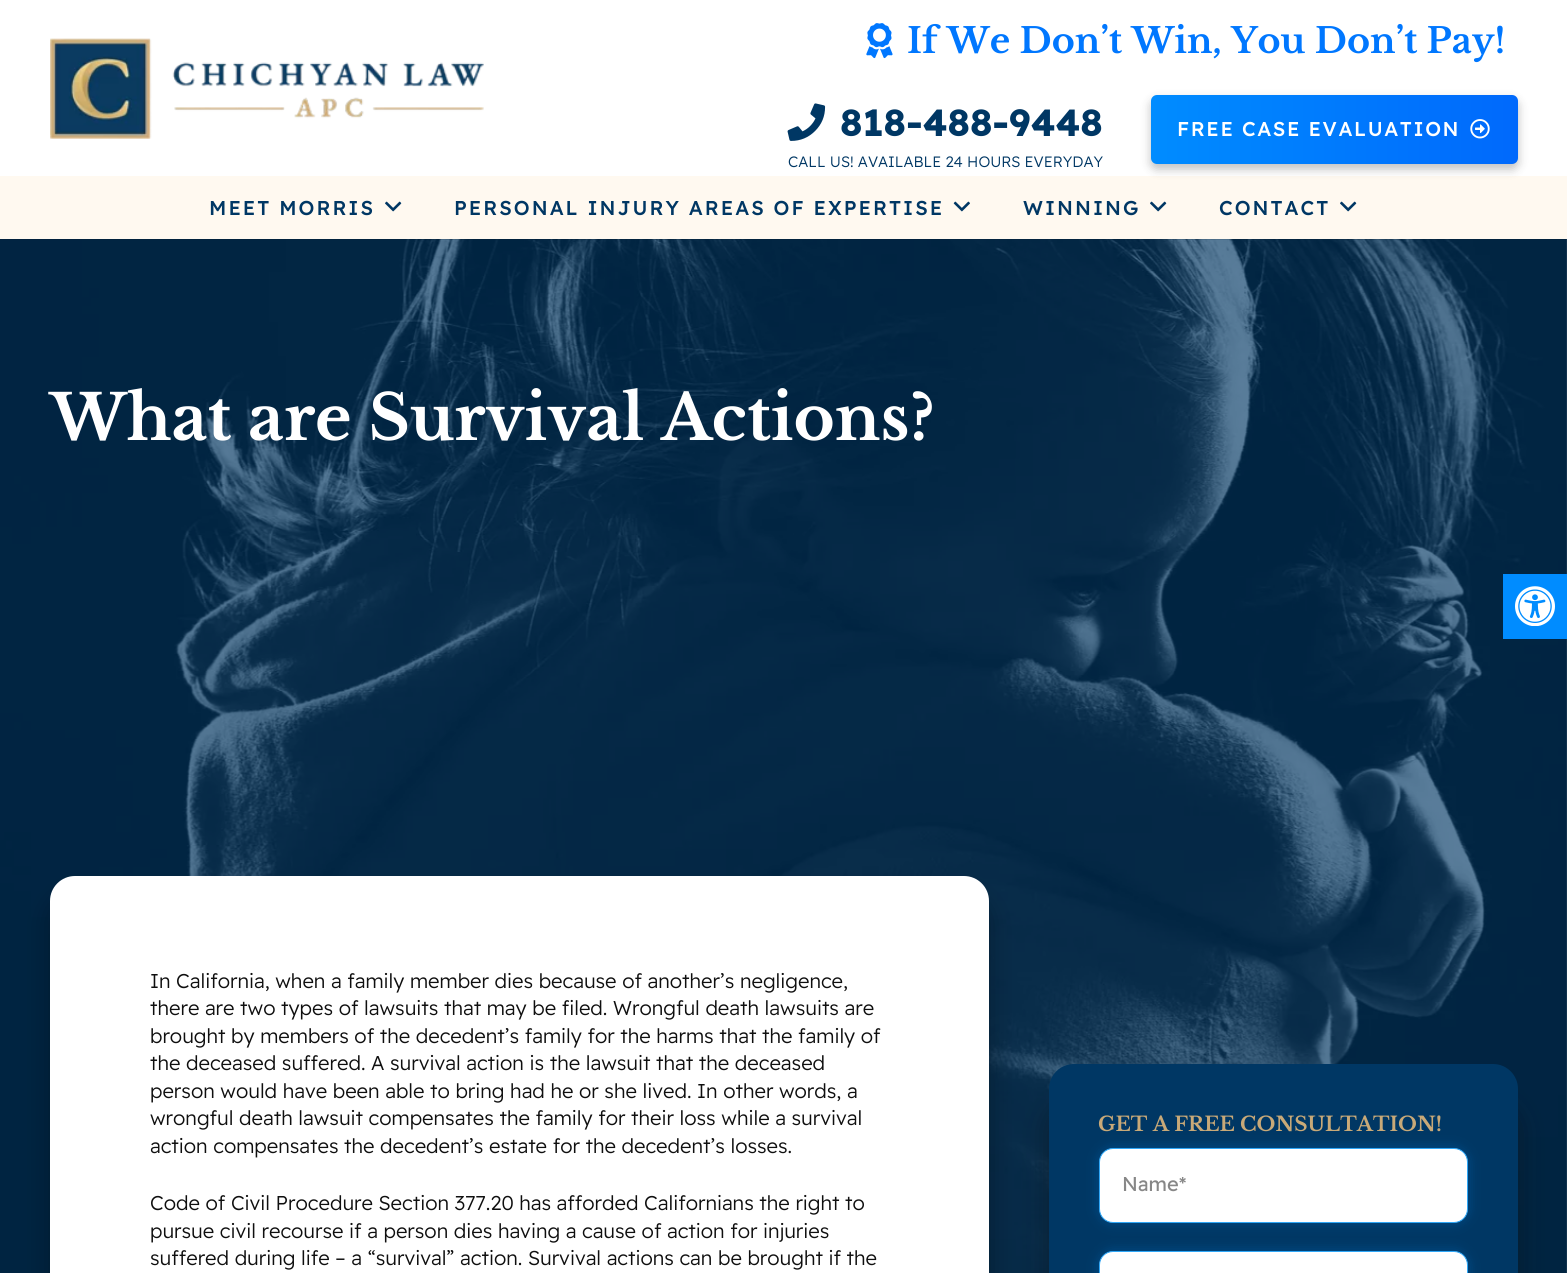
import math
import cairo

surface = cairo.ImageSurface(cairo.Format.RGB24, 1567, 1273)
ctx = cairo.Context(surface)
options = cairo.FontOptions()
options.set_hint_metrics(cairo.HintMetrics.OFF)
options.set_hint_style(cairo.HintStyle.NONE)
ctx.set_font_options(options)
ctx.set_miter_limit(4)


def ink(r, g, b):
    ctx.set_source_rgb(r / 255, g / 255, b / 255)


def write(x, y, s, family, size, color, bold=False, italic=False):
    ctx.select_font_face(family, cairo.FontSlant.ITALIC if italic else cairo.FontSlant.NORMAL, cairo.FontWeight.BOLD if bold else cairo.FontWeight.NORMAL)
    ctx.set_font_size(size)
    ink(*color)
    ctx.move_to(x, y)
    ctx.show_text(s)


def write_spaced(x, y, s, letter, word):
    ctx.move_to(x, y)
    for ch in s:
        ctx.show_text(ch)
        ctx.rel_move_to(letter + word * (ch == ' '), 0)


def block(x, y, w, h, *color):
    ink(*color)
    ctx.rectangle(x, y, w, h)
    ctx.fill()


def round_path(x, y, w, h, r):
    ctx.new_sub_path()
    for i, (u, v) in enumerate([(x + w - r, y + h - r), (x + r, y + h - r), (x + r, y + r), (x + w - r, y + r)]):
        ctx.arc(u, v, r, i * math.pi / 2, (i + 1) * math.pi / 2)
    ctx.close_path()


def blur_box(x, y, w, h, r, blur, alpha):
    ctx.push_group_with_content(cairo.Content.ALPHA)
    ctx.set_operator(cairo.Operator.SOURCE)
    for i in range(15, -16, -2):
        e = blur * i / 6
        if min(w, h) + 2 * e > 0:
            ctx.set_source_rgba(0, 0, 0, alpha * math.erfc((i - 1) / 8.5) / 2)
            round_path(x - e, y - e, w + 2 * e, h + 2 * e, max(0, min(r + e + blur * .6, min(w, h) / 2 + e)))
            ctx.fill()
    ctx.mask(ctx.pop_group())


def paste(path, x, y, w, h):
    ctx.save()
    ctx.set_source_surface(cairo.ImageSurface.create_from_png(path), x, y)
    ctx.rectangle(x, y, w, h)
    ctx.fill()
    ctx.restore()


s1 = dict(family="Libre Baskerville", size=35, color=(0, 119, 255), bold=True)
s2 = dict(family="Readex Pro", size=37.5, color=(0, 55, 100), bold=True)
s3 = dict(family="Readex Pro Light", size=15, color=(0, 55, 100))
s4 = dict(family="Libre Baskerville", size=62.6, color=(255, 255, 255), bold=True)
s5 = dict(family="Readex Pro Light", size=20, color=(15, 15, 15))
s6 = dict(family="Libre Baskerville", size=20, color=(200, 169, 120), bold=True)
s7 = dict(family="Readex Pro", size=20, color=(135, 135, 135))

ink(255, 255, 255)
ctx.paint()
paste("pic1.png", 50, 38, 434, 101)
paste("pic2.png", 866, 23, 27, 36)
write(907, 53, "If We Don’t Win, You Don’t Pay!", **s1)
paste("pic3.png", 787, 103, 39, 38)
write(840, 136, "818-488-9448", **s2)
write(788, 167, "CALL US! AVAILABLE 24 HOURS EVERYDAY", **s3)
block(0, 176, 1567, 63, 255, 249, 240)
ink(0, 0, 0)
blur_box(1151, 100, 367, 69, 6, 5, 0.25)
gradient = cairo.LinearGradient(1151, 129, 1518, 129)
gradient.add_color_stop_rgba(0, 0, 0.549, 1, 1)
gradient.add_color_stop_rgba(1, 0, 0.412, 0.988, 1)
ctx.set_source(gradient)
round_path(1151, 95, 367, 69, 6)
ctx.fill()
ctx.select_font_face("Readex Pro Medium")
ctx.set_font_size(20)
ink(255, 255, 255)
write_spaced(1177, 136, "FREE CASE EVALUATION", 1.6, 0)
paste("pic4.png", 1470, 119, 20, 20)
paste("pic7.png", 0, 239, 1567, 1034)
ctx.set_source_rgba(0, 0, 0, 0.08)
ctx.new_path()
ctx.move_to(0, 239)
ctx.line_to(0, 240)
ctx.line_to(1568, 240)
ctx.line_to(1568, 178)
ctx.line_to(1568, 239)
ctx.close_path()
ctx.fill()
ink(0, 55, 100)
write_spaced(209, 215, "MEET MORRIS", 2, 0)
paste("pic5.png", 385, 201, 17, 11)
write_spaced(454, 215, "PERSONAL INJURY AREAS OF EXPERTISE", 2, 0)
paste("pic6.png", 953, 201, 17, 11)
write_spaced(1023, 215, "WINNING", 2, 0)
paste("pic5.png", 1150, 201, 17, 11)
write_spaced(1219, 215, "CONTACT", 2, 0)
paste("pic5.png", 1340, 201, 17, 11)
write(50, 440, "What are Survival Actions?", **s4)
ink(0, 0, 0)
blur_box(50, 896, 939, 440, 25, 12.5, 0.3)
ink(255, 255, 255)
round_path(50, 876, 939, 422, 25)
ctx.fill()
write(150, 988, "In California, when a family member dies because of another’s negligence,", **s5)
write(150, 1015, "there are two types of lawsuits that may be filed. Wrongful death lawsuits are", **s5)
write(150, 1043, "brought by members of the decedent’s family for the harms that the family of", **s5)
write(150, 1070, "the deceased suffered. A survival action is the lawsuit that the deceased", **s5)
write(150, 1098, "person would have been able to bring had he or she lived. In other words, a", **s5)
write(150, 1125, "wrongful death lawsuit compensates the family for their loss while a survival", **s5)
write(150, 1153, "action compensates the decedent’s estate for the decedent’s losses.", **s5)
write(150, 1210, "Code of Civil Procedure Section 377.20 has afforded Californians the right to", **s5)
write(150, 1238, "pursue civil recourse if a person dies having a cause of action for injuries", **s5)
write(150, 1265, "suffered during life – a “survival” action. Survival actions can be brought if the", **s5)
ink(15, 15, 15)
blur_box(1049, 1104, 469, 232, 25, 12.5, 0.4)
ink(0, 55, 100)
round_path(1049, 1064, 469, 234, 25)
ctx.fill()
write(1098, 1131, "GET A FREE CONSULTATION!", **s6)
ink(0, 147, 252)
blur_box(1099, 1148, 369, 75, 14, 6, 0.25)
ink(255, 255, 255)
round_path(1099.5, 1148.5, 368, 74, 13.5)
ctx.fill_preserve()
ink(47, 167, 247)
ctx.set_line_width(1)
ctx.stroke()
write(1122, 1191, "Name*", **s7)
ink(0, 147, 252)
blur_box(1099, 1251, 369, 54, 14, 6, 0.25)
ink(255, 255, 255)
round_path(1099.5, 1251.5, 368, 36, 13.5)
ctx.fill_preserve()
ink(47, 167, 247)
ctx.stroke()
block(1503, 574, 64, 65, 0, 140, 255)
paste("pic8.png", 1515, 586, 40, 40)
surface.write_to_png("screenshot.png")
